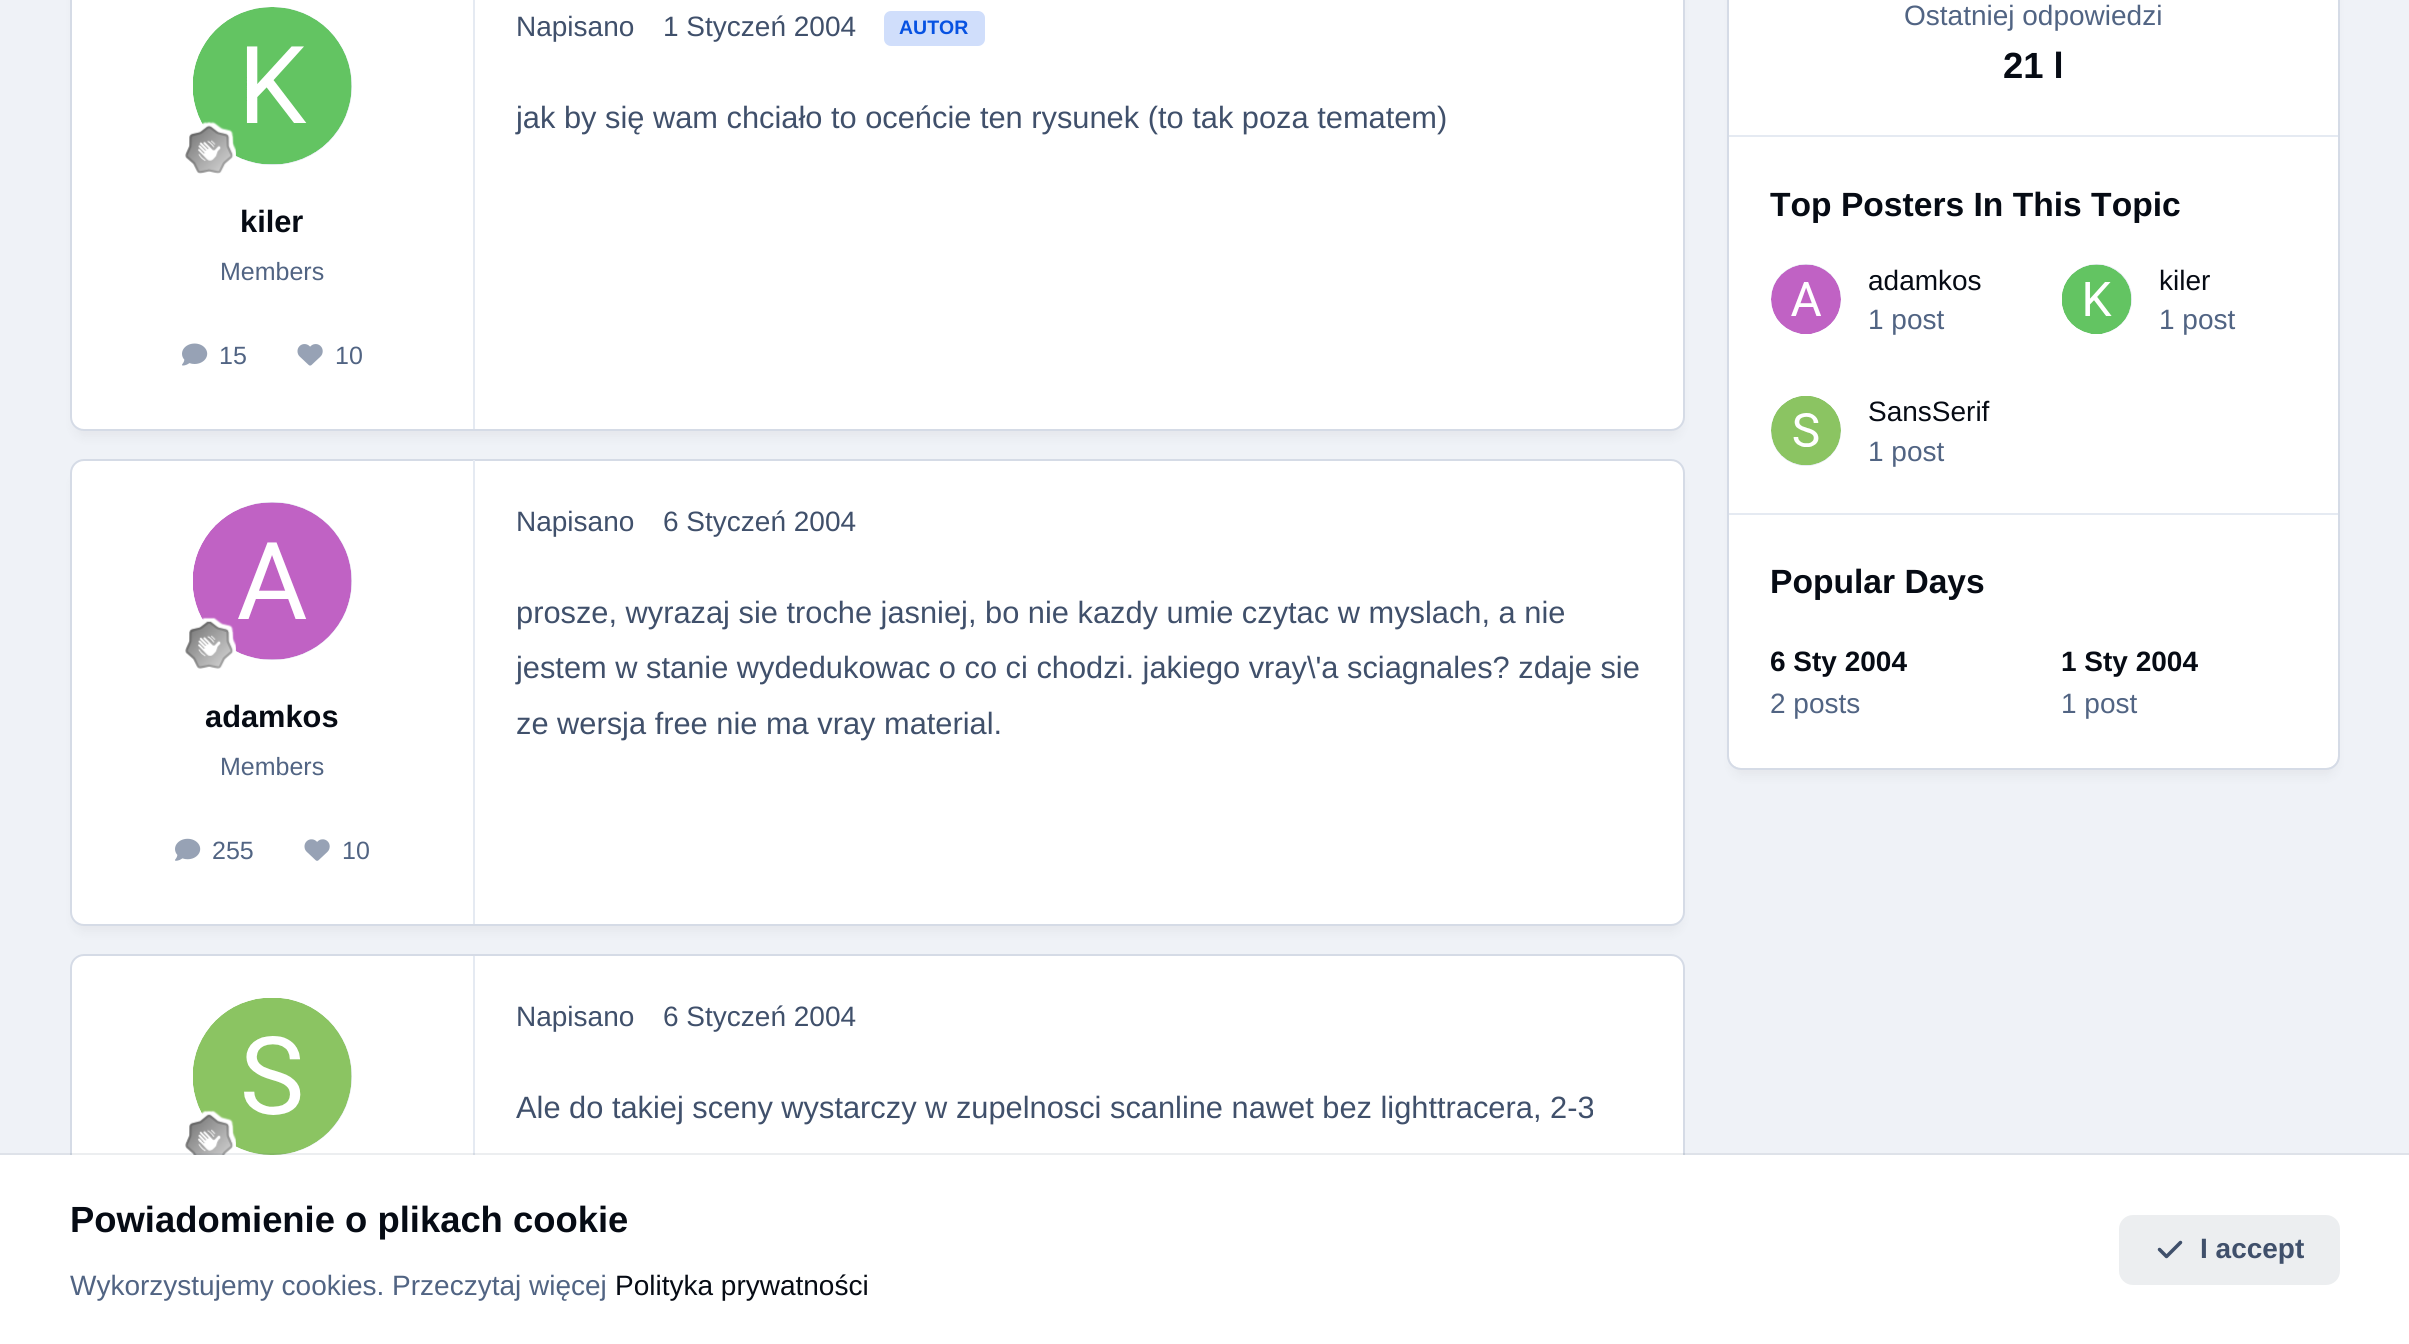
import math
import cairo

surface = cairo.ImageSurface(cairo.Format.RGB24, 2409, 1344)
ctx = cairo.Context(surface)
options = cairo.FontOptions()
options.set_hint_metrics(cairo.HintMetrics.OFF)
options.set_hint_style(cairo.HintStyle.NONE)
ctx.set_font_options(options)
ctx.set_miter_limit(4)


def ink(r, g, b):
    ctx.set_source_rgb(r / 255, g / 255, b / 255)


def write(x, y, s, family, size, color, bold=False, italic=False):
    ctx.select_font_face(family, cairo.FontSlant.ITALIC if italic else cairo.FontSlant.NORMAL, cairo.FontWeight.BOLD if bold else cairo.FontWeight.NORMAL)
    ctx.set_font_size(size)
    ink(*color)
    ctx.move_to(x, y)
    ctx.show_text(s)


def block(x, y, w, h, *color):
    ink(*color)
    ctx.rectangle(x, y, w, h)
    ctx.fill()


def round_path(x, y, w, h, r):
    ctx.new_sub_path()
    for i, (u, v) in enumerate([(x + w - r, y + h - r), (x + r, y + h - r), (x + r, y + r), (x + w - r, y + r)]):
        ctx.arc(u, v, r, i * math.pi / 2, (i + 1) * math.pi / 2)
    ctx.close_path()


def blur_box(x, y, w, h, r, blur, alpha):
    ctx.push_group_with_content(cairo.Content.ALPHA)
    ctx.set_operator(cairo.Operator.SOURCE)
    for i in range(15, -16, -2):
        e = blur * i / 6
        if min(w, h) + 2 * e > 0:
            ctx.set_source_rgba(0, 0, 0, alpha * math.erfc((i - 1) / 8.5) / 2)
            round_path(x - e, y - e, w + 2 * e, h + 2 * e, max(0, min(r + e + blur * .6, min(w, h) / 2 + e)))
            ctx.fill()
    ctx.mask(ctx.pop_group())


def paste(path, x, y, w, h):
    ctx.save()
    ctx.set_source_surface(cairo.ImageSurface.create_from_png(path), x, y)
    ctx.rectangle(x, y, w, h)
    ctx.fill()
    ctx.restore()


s1 = dict(family="Liberation Sans", size=28, color=(64, 80, 107))
s2 = dict(family="Liberation Sans", size=19.5, color=(7, 82, 226), bold=True)
s3 = dict(family="Liberation Sans", size=30.8, color=(64, 80, 107))
s4 = dict(family="Liberation Sans", size=30.8, color=(6, 11, 20), bold=True)
s5 = dict(family="Liberation Sans", size=25, color=(81, 100, 131))
s6 = dict(family="Liberation Sans", size=28, color=(81, 100, 131))
s7 = dict(family="Liberation Sans", size=36.4, color=(6, 11, 20), bold=True)
s8 = dict(family="Liberation Sans", size=33.6, color=(6, 11, 20), bold=True)
s9 = dict(family="Liberation Sans", size=28, color=(6, 11, 20))
s10 = dict(family="Liberation Sans", size=28, color=(6, 11, 20), bold=True)
s11 = dict(family="Liberation Sans", size=28, color=(64, 80, 107), bold=True)

ink(239, 242, 247)
ctx.paint()
ink(1, 3, 10)
blur_box(75, -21, 1605, 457, 9, 6, 0.05)
ink(255, 255, 255)
round_path(71, -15, 1613, 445, 13)
ctx.fill_preserve()
ink(213, 219, 230)
ctx.stroke()
write(516, 36, "Napisano", **s1)
write(663, 36, "1 Styczeń 2004", **s1)
ink(208, 222, 251)
round_path(884, 11, 101, 35, 7)
ctx.fill()
write(899, 34, "AUTOR", **s2)
write(516, 128, "jak by się wam chciało to oceńcie ten rysunek (to tak poza tematem)", **s3)
block(473, 0, 2, 429, 229, 234, 242)
round_path(193, 7, 159, 158, 79)
ctx.fill()
paste("pic1.png", 193, 7, 159, 158)
paste("pic2.png", 185, 121, 51, 53)
write(240, 232, "kiler", **s4)
write(220, 280, "Members", **s5)
paste("pic3.png", 182, 343, 26, 23)
write(219, 364, "15", **s5)
paste("pic4.png", 297, 344, 26, 22)
write(335, 364, "10", **s5)
ink(1, 3, 10)
blur_box(75, 474, 1605, 457, 9, 6, 0.05)
ink(255, 255, 255)
round_path(71, 460, 1613, 465, 13)
ctx.fill_preserve()
ink(213, 219, 230)
ctx.stroke()
write(516, 531, "Napisano", **s1)
write(663, 531, "6 Styczeń 2004", **s1)
write(516, 623, "prosze, wyrazaj sie troche jasniej, bo nie kazdy umie czytac w myslach, a nie", **s3)
write(516, 678, "jestem w stanie wydedukowac o co ci chodzi. jakiego vray\\'a sciagnales? zdaje sie", **s3)
write(516, 734, "ze wersja free nie ma vray material.", **s3)
block(473, 460, 2, 464, 229, 234, 242)
round_path(193, 502, 159, 158, 79)
ctx.fill()
paste("pic5.png", 193, 502, 159, 158)
paste("pic6.png", 185, 617, 51, 52)
write(205, 727, "adamkos", **s4)
write(220, 775, "Members", **s5)
paste("pic7.png", 175, 838, 26, 23)
write(212, 859, "255", **s5)
paste("pic8.png", 304, 839, 26, 22)
write(342, 859, "10", **s5)
ink(255, 255, 255)
round_path(71, 955, 1613, 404, 13)
ctx.fill_preserve()
ink(213, 219, 230)
ctx.stroke()
block(473, 956, 2, 199, 229, 234, 242)
round_path(193, 998, 159, 157, 78.5)
ctx.fill()
paste("pic9.png", 193, 998, 159, 157)
paste("pic10.png", 185, 1110, 51, 45)
write(516, 1026, "Napisano", **s1)
write(663, 1026, "6 Styczeń 2004", **s1)
write(516, 1118, "Ale do takiej sceny wystarczy w zupelnosci scanline nawet bez lighttracera, 2-3", **s3)
ink(1, 3, 10)
blur_box(1733, -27, 602, 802, 9, 6, 0.05)
ink(255, 255, 255)
round_path(1729, -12, 609, 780, 12)
ctx.fill()
round_path(1728, -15, 611, 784, 13)
ink(213, 219, 230)
ctx.stroke()
write(1904, 25, "Ostatniej odpowiedzi", **s6)
write(2003, 78, "21 l", **s7)
write(1770, 216, "Top Posters In This Topic", **s8)
write(1868, 290, "adamkos", **s9)
write(1868, 329, "1 post", **s6)
write(2159, 290, "kiler", **s9)
write(2159, 329, "1 post", **s6)
write(1868, 421, "SansSerif", **s9)
write(1868, 461, "1 post", **s6)
ink(229, 234, 242)
ctx.set_fill_rule(cairo.FillRule.EVEN_ODD)
ctx.new_path()
ctx.move_to(2338, 515)
ctx.line_to(1729, 515)
ctx.line_to(1729, 513)
ctx.line_to(2338, 513)
ctx.close_path()
ctx.move_to(1729, 137)
ctx.line_to(2338, 137)
ctx.line_to(2338, 135)
ctx.line_to(1729, 135)
ctx.close_path()
ctx.fill()
ctx.arc(1806, 299, 35, 0, 2 * math.pi)
ctx.fill()
paste("pic11.png", 1771, 264, 70, 70)
ctx.arc(2097, 299, 35, 0, 2 * math.pi)
ctx.fill()
paste("pic12.png", 2062, 264, 70, 70)
ctx.arc(1806, 431, 35, 0, 2 * math.pi)
ctx.fill()
paste("pic13.png", 1771, 396, 70, 69)
write(1770, 593, "Popular Days", **s8)
write(1770, 671, "6 Sty 2004", **s10)
write(1770, 713, "2 posts", **s6)
write(2061, 671, "1 Sty 2004", **s10)
write(2061, 713, "1 post", **s6)
block(0, 1155, 2409, 189, 255, 255, 255)
ctx.set_source_rgba(0.251, 0.314, 0.42, 0.1)
ctx.rectangle(0, 1153, 2409, 2)
ctx.fill()
write(70, 1232, "Powiadomienie o plikach cookie", **s7)
write(70, 1295, "Wykorzystujemy cookies. Przeczytaj więcej", **s6)
write(615, 1295, "Polityka prywatności", **s9)
ink(236, 238, 240)
round_path(2119, 1215, 221, 70, 14)
ctx.fill()
paste("pic14.png", 2157, 1240, 26, 19)
write(2200, 1258, "I accept", **s11)
surface.write_to_png("screenshot.png")
